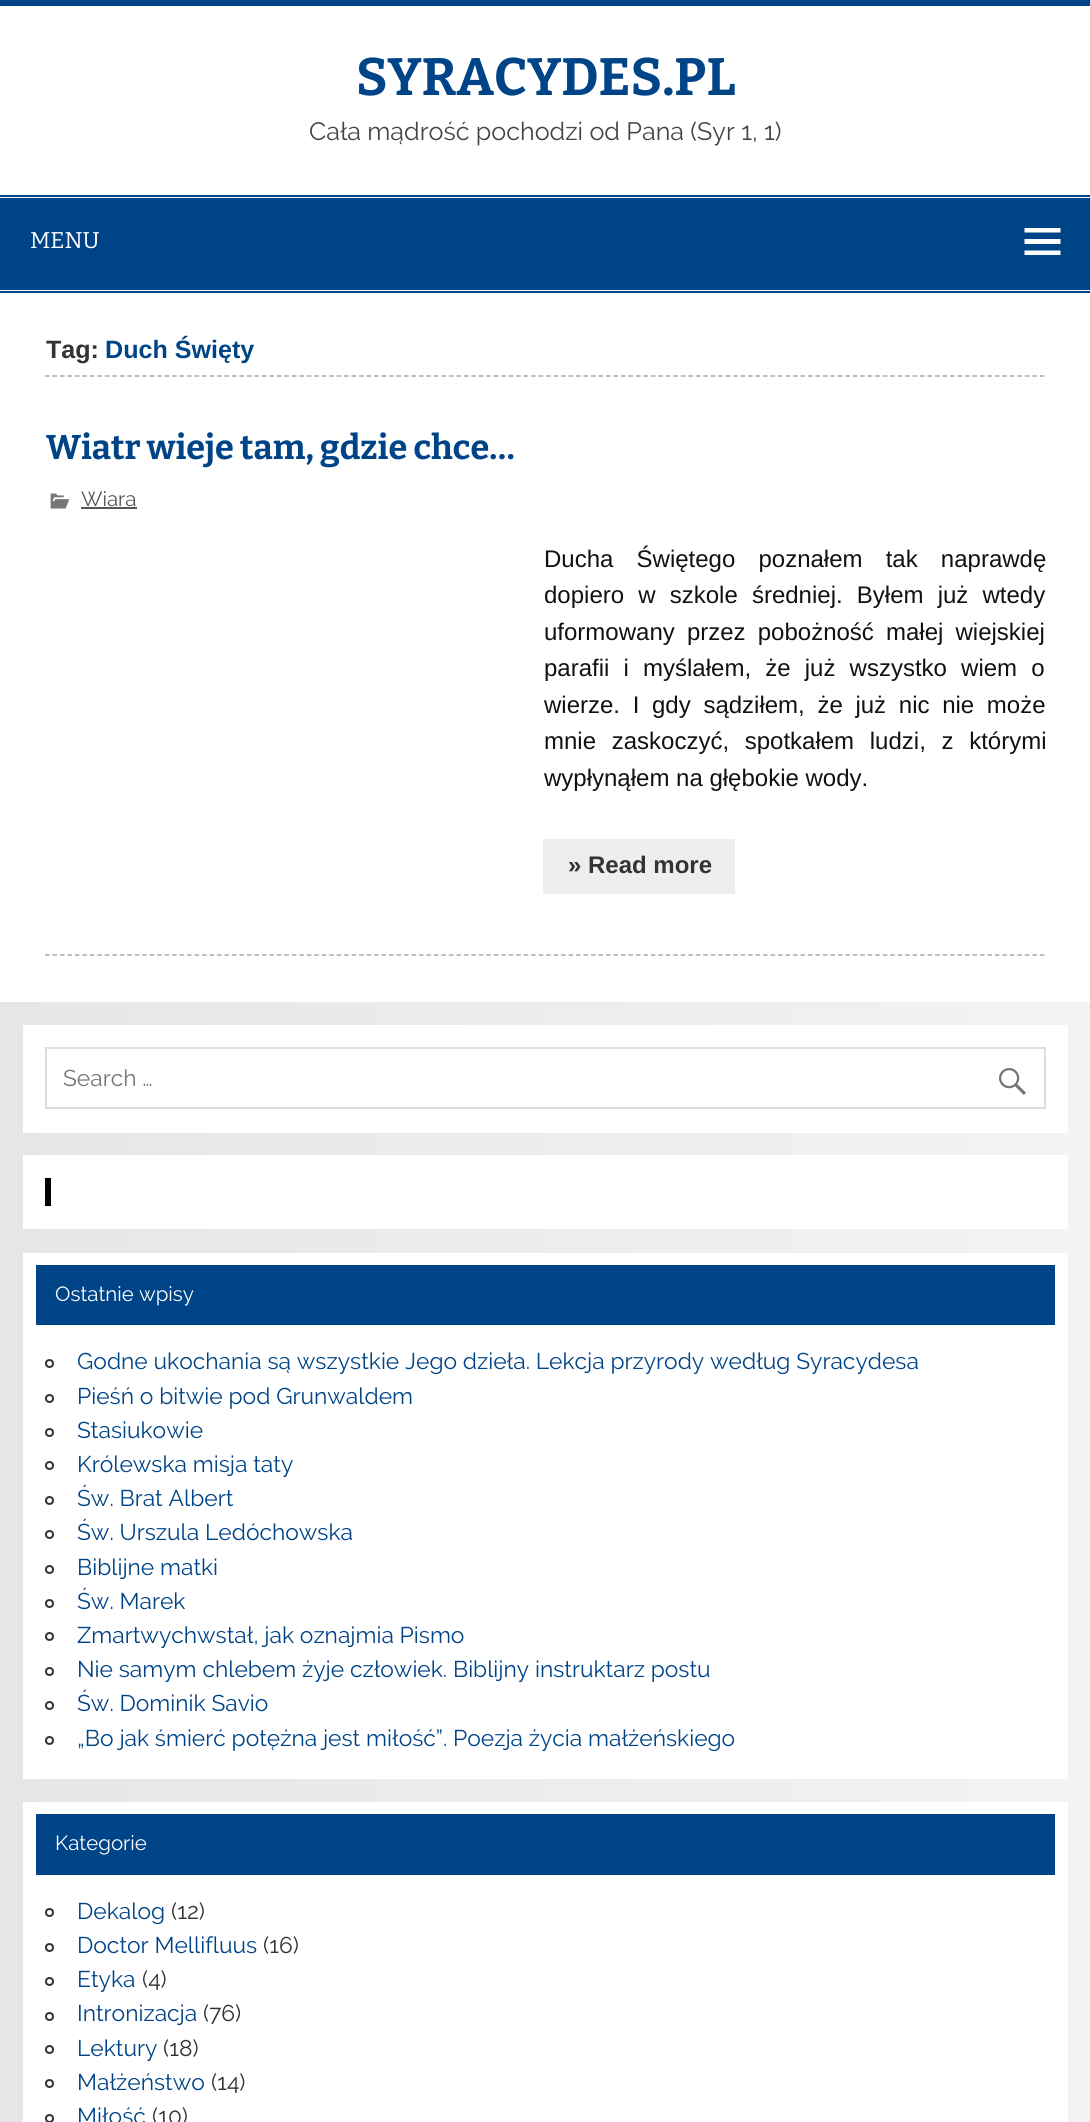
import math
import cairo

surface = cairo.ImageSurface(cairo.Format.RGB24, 1090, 2122)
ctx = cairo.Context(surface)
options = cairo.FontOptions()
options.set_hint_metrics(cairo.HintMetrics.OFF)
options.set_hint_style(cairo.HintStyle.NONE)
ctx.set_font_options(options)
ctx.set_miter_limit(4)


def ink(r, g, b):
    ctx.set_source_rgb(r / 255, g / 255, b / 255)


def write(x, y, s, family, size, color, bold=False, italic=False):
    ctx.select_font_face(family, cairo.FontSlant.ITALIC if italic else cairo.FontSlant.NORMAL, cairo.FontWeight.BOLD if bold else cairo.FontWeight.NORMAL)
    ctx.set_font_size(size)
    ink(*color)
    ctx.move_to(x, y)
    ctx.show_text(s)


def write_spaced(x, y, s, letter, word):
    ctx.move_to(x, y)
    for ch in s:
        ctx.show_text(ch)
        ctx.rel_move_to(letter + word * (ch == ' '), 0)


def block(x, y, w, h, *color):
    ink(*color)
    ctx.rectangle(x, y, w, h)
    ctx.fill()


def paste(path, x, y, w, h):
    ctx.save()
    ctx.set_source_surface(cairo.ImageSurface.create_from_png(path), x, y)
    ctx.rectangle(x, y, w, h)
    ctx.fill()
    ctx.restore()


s1 = dict(family="Bitter", size=52.5, color=(0, 68, 136), bold=True)
s2 = dict(family="Raleway", size=25.1, color=(68, 68, 68))
s3 = dict(family="Bitter", size=22.8, color=(255, 255, 255))
s4 = dict(family="Liberation Sans", size=25.1, color=(51, 51, 51), bold=True)
s5 = dict(family="Liberation Sans", size=25.1, color=(0, 68, 136), bold=True)
s6 = dict(family="Bitter", size=34.25, color=(0, 68, 136), bold=True)
s7 = dict(family="Raleway", size=20.5, color=(85, 85, 85))
s8 = dict(family="Liberation Sans", size=24, color=(17, 17, 17))
s9 = dict(family="Liberation Sans", size=24, color=(51, 51, 51), bold=True)
s10 = dict(family="Raleway", size=22.8, color=(117, 117, 117))
s11 = dict(family="Raleway", size=20.5, color=(255, 255, 255))
s12 = dict(family="Raleway", size=22.8, color=(0, 68, 136))
s13 = dict(family="Raleway", size=22.8, color=(51, 51, 51))

ink(255, 255, 255)
ctx.paint()
block(0, 0, 1090, 6, 0, 68, 136)
write(356, 95, "SYRACYDES.PL", **s1)
write(309, 140, "Cała mądrość pochodzi od Pana (Syr 1, 1)", **s2)
block(0, 195, 1090, 2, 0, 68, 136)
block(0, 291, 1090, 2, 0, 68, 136)
block(0, 198, 1090, 92, 0, 68, 136)
write(30, 248, "MENU", **s3)
ctx.new_path()
ctx.move_to(1024.5, 255)
ctx.line_to(1024.5, 250.5)
ctx.line_to(1060.5, 250.5)
ctx.line_to(1060.5, 255)
ctx.close_path()
ctx.move_to(1024.5, 228)
ctx.line_to(1060.5, 228)
ctx.line_to(1060.5, 232.5)
ctx.line_to(1024.5, 232.5)
ctx.close_path()
ctx.move_to(1024.5, 244)
ctx.line_to(1024.5, 239)
ctx.line_to(1060.5, 239)
ctx.line_to(1060.5, 244)
ctx.close_path()
ctx.fill()
ctx.new_path()
ctx.move_to(45, 376)
ctx.line_to(1045.5, 376)
ink(170, 170, 170)
ctx.set_line_width(1.5)
ctx.set_dash([4.5, 2.98])
ctx.stroke()
write(46, 358, "Tag:", **s4)
write(105, 358, "Duch Święty", **s5)
ctx.new_path()
ctx.move_to(45, 955)
ctx.line_to(1045.5, 955)
ink(170, 170, 170)
ctx.stroke()
write(46, 459, "Wiatr wieje tam, gdzie chce…", **s6)
paste("pic1.png", 50, 493, 20, 16)
write(81, 506, "Wiara", **s7)
block(81, 507, 56, 2, 85, 85, 85)
ctx.select_font_face("Liberation Sans")
ctx.set_font_size(24)
ink(17, 17, 17)
write_spaced(544, 567, "Ducha Świętego poznałem tak naprawdę", 0, 16.5)
write_spaced(544, 603, "dopiero w szkole średniej. Byłem już wtedy", 0, 7.5)
write_spaced(544, 640, "uformowany przez pobożność małej wiejskiej", 0, 5.5)
write_spaced(544, 676, "parafii i myślałem, że już wszystko wiem o", 0, 7.5)
write_spaced(544, 713, "wierze. I gdy sądziłem, że już nic nie może", 0, 6)
write_spaced(544, 749, "mnie zaskoczyć, spotkałem ludzi, z którymi", 0, 9)
write(544, 786, "wypłynąłem na głębokie wody.", **s8)
block(543, 839, 192, 55, 238, 238, 238)
write(568, 873, "» Read more", **s9)
gradient = cairo.LinearGradient(0, 1808, 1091, 1808)
gradient.add_color_stop_rgba(0, 0.902, 0.902, 0.902, 1)
gradient.add_color_stop_rgba(1, 0.953, 0.953, 0.953, 1)
ctx.set_source(gradient)
ctx.rectangle(0, 1002, 1090, 1120)
ctx.fill()
block(23, 1025, 1045, 108, 255, 255, 255)
ctx.rectangle(46, 1048, 999, 60)
ink(221, 221, 221)
ctx.set_line_width(2)
ctx.set_dash([])
ctx.stroke()
write(63, 1086, "Search …", **s10)
paste("pic2.png", 999, 1068, 27, 27)
block(23, 1155, 1045, 74, 255, 255, 255)
block(45, 1178, 6, 28, 0, 0, 0)
block(23, 1253, 1045, 526, 255, 255, 255)
block(36, 1265, 1019, 60, 0, 68, 136)
write(55, 1301, "Ostatnie wpisy", **s11)
ctx.new_path()
ctx.arc(49.5, 1363.5, 3.5, 0, 2 * math.pi)
ink(51, 51, 51)
ctx.stroke()
write(77, 1369, "Godne ukochania są wszystkie Jego dzieła. Lekcja przyrody według Syracydesa", **s12)
ctx.new_path()
ctx.arc(49.5, 1398.5, 3.5, 0, 2 * math.pi)
ink(51, 51, 51)
ctx.stroke()
write(77, 1404, "Pieśń o bitwie pod Grunwaldem", **s12)
ctx.new_path()
ctx.arc(49.5, 1432.5, 3.5, 0, 2 * math.pi)
ink(51, 51, 51)
ctx.stroke()
write(77, 1438, "Stasiukowie", **s12)
ctx.new_path()
ctx.arc(49.5, 1465.5, 3.5, 0, 2 * math.pi)
ink(51, 51, 51)
ctx.stroke()
write(77, 1472, "Królewska misja taty", **s12)
ctx.new_path()
ctx.arc(49.5, 1500.5, 3.5, 0, 2 * math.pi)
ink(51, 51, 51)
ctx.stroke()
write(77, 1506, "Św. Brat Albert", **s12)
ctx.new_path()
ctx.arc(49.5, 1534.5, 3.5, 0, 2 * math.pi)
ink(51, 51, 51)
ctx.stroke()
write(77, 1540, "Św. Urszula Ledóchowska", **s12)
ctx.new_path()
ctx.arc(49.5, 1569.5, 3.5, 0, 2 * math.pi)
ink(51, 51, 51)
ctx.stroke()
write(77, 1575, "Biblijne matki", **s12)
ctx.new_path()
ctx.arc(49.5, 1603.5, 3.5, 0, 2 * math.pi)
ink(51, 51, 51)
ctx.stroke()
write(77, 1609, "Św. Marek", **s12)
ctx.new_path()
ctx.arc(49.5, 1636.5, 3.5, 0, 2 * math.pi)
ink(51, 51, 51)
ctx.stroke()
write(77, 1643, "Zmartwychwstał, jak oznajmia Pismo", **s12)
ctx.new_path()
ctx.arc(49.5, 1671.5, 3.5, 0, 2 * math.pi)
ink(51, 51, 51)
ctx.stroke()
write(77, 1677, "Nie samym chlebem żyje człowiek. Biblijny instruktarz postu", **s12)
ctx.new_path()
ctx.arc(49.5, 1705.5, 3.5, 0, 2 * math.pi)
ink(51, 51, 51)
ctx.stroke()
write(77, 1711, "Św. Dominik Savio", **s12)
ctx.new_path()
ctx.arc(49.5, 1740.5, 3.5, 0, 2 * math.pi)
ink(51, 51, 51)
ctx.stroke()
write(77, 1746, "„Bo jak śmierć potężna jest miłość”. Poezja życia małżeńskiego", **s12)
block(23, 1802, 1045, 320, 255, 255, 255)
block(36, 1814, 1019, 61, 0, 68, 136)
write(55, 1850, "Kategorie", **s11)
ctx.new_path()
ctx.arc(49.5, 1912.5, 3.5, 0, 2 * math.pi)
ink(51, 51, 51)
ctx.stroke()
write(77, 1919, "Dekalog", **s12)
write(171, 1919, "(12)", **s13)
ctx.new_path()
ctx.arc(49.5, 1947.5, 3.5, 0, 2 * math.pi)
ctx.stroke()
write(77, 1953, "Doctor Mellifluus", **s12)
write(263, 1953, "(16)", **s13)
ctx.new_path()
ctx.arc(49.5, 1981.5, 3.5, 0, 2 * math.pi)
ctx.stroke()
write(77, 1987, "Etyka", **s12)
write(142, 1987, "(4)", **s13)
ctx.new_path()
ctx.arc(49.5, 2016.5, 3.5, 0, 2 * math.pi)
ctx.stroke()
write(77, 2021, "Intronizacja", **s12)
write(203, 2021, "(76)", **s13)
ctx.new_path()
ctx.arc(49.5, 2049.5, 3.5, 0, 2 * math.pi)
ctx.stroke()
write(77, 2056, "Lektury", **s12)
write(163, 2056, "(18)", **s13)
ctx.new_path()
ctx.arc(49.5, 2083.5, 3.5, 0, 2 * math.pi)
ctx.stroke()
write(77, 2090, "Małżeństwo", **s12)
write(211, 2090, "(14)", **s13)
ctx.new_path()
ctx.arc(49.5, 2118.5, 3.5, 0, 2 * math.pi)
ctx.stroke()
write(77, 2124, "Miłość", **s12)
write(152, 2124, "(10)", **s13)
surface.write_to_png("screenshot.png")
